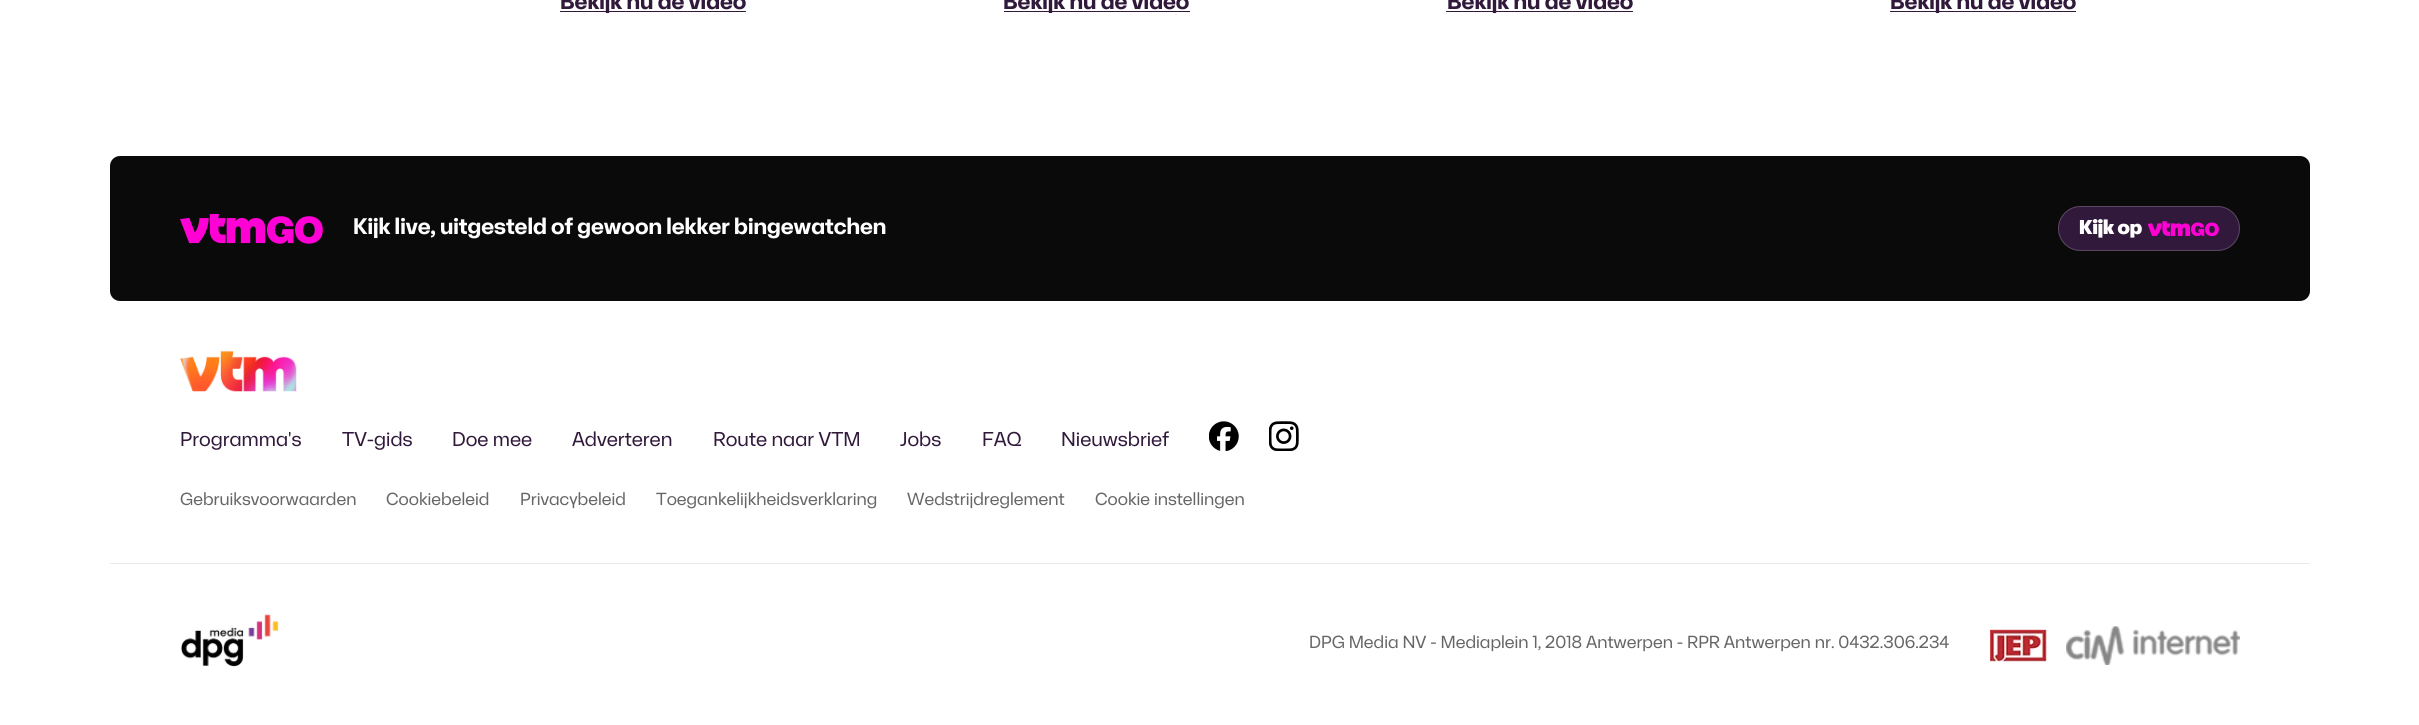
import math
import cairo

surface = cairo.ImageSurface(cairo.Format.RGB24, 2419, 725)
ctx = cairo.Context(surface)
options = cairo.FontOptions()
options.set_hint_metrics(cairo.HintMetrics.OFF)
options.set_hint_style(cairo.HintStyle.NONE)
ctx.set_font_options(options)
ctx.set_miter_limit(4)


def ink(r, g, b):
    ctx.set_source_rgb(r / 255, g / 255, b / 255)


def write(x, y, s, family, size, color, bold=False, italic=False):
    ctx.select_font_face(family, cairo.FontSlant.ITALIC if italic else cairo.FontSlant.NORMAL, cairo.FontWeight.BOLD if bold else cairo.FontWeight.NORMAL)
    ctx.set_font_size(size)
    ink(*color)
    ctx.move_to(x, y)
    ctx.show_text(s)


def block(x, y, w, h, *color):
    ink(*color)
    ctx.rectangle(x, y, w, h)
    ctx.fill()


def round_path(x, y, w, h, r):
    ctx.new_sub_path()
    for i, (u, v) in enumerate([(x + w - r, y + h - r), (x + r, y + h - r), (x + r, y + r), (x + w - r, y + r)]):
        ctx.arc(u, v, r, i * math.pi / 2, (i + 1) * math.pi / 2)
    ctx.close_path()


def paste(path, x, y, w, h):
    ctx.save()
    ctx.set_source_surface(cairo.ImageSurface.create_from_png(path), x, y)
    ctx.rectangle(x, y, w, h)
    ctx.fill()
    ctx.restore()


s1 = dict(family="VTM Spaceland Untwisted", size=22.5, color=(49, 25, 59), bold=True)
s2 = dict(family="VTM Spaceland Untwisted", size=22.5, color=(255, 255, 255), bold=True)
s3 = dict(family="VTM Spaceland Untwisted Black", size=20, color=(255, 255, 255))
s4 = dict(family="VTM Spaceland Untwisted", size=20, color=(49, 25, 59))
s5 = dict(family="VTM Spaceland Untwisted", size=17.5, color=(102, 102, 102))

ink(255, 255, 255)
ctx.paint()
block(560, 11, 186, 1, 49, 25, 59)
write(560, 9, "Bekijk nu de video", **s1)
block(1004, 11, 186, 1, 49, 25, 59)
write(1003, 9, "Bekijk nu de video", **s1)
block(1446, 11, 187, 1, 49, 25, 59)
write(1447, 9, "Bekijk nu de video", **s1)
block(1890, 11, 186, 1, 49, 25, 59)
write(1890, 9, "Bekijk nu de video", **s1)
ink(10, 10, 10)
round_path(110, 156, 2200, 145, 10)
ctx.fill()
paste("pic1.png", 180, 214, 143, 30)
write(353, 234, "Kijk live, uitgesteld of gewoon lekker bingewatchen", **s2)
ink(49, 25, 59)
round_path(2058, 206, 182, 45, 22.5)
ctx.fill()
round_path(2058.5, 206.5, 181, 44, 22)
ctx.set_source_rgba(1, 1, 1, 0.2)
ctx.set_line_width(1)
ctx.stroke()
write(2079, 234, "Kijk op", **s3)
paste("pic2.png", 2148, 221, 71, 15)
paste("pic3.png", 180, 351, 117, 41)
write(180, 446, "Programma's", **s4)
write(342, 446, "TV-gids", **s4)
write(452, 446, "Doe mee", **s4)
write(572, 446, "Adverteren", **s4)
write(713, 446, "Route naar VTM", **s4)
write(900, 446, "Jobs", **s4)
write(982, 446, "FAQ", **s4)
write(1061, 446, "Nieuwsbrief", **s4)
paste("pic4.png", 1209, 421, 30, 30)
paste("pic5.png", 1269, 421, 30, 30)
write(180, 505, "Gebruiksvoorwaarden", **s5)
write(386, 505, "Cookiebeleid", **s5)
write(520, 505, "Privacybeleid", **s5)
write(656, 505, "Toegankelijkheidsverklaring", **s5)
write(907, 505, "Wedstrijdreglement", **s5)
write(1095, 505, "Cookie instellingen", **s5)
block(110, 563, 2200, 1, 234, 234, 234)
paste("pic6.png", 181, 614, 98, 53)
write(1309, 648, "DPG Media NV - Mediaplein 1, 2018 Antwerpen - RPR Antwerpen nr. 0432.306.234", **s5)
paste("pic7.png", 1990, 629, 57, 33)
paste("pic8.png", 2066, 626, 174, 39)
surface.write_to_png("screenshot.png")
